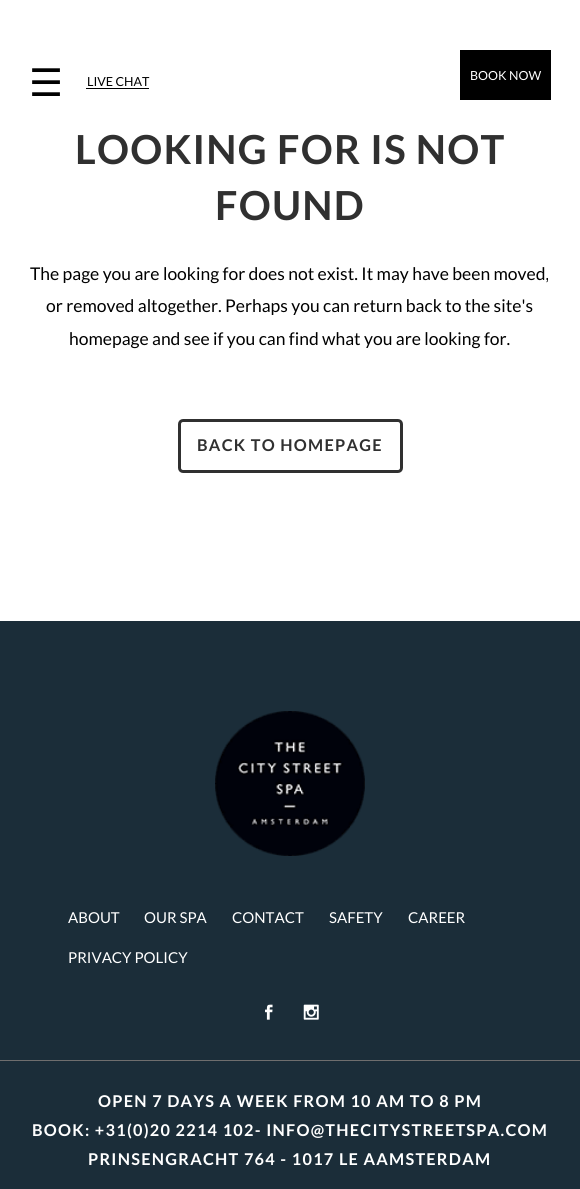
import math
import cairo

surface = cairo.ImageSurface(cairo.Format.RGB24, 580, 1189)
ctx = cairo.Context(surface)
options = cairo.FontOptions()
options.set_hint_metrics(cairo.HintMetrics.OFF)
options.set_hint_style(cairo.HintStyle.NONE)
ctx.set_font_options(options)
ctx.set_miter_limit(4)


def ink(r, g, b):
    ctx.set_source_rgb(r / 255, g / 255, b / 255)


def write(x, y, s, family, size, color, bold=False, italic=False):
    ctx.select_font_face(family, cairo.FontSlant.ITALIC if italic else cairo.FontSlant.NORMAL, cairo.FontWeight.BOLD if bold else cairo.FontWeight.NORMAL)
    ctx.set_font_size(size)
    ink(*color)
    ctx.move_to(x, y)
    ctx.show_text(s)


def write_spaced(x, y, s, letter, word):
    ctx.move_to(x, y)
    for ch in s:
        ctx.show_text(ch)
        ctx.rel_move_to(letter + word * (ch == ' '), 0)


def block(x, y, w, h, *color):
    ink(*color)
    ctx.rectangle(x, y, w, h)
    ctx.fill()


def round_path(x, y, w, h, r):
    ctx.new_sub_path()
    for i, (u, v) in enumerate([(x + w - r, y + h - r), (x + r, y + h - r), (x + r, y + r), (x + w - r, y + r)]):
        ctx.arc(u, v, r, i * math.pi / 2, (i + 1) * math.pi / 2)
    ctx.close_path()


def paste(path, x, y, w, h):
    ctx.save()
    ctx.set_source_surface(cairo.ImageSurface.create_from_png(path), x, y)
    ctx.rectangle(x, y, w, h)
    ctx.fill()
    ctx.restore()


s1 = dict(family="DejaVu Sans", size=38, color=(0, 0, 0))
s2 = dict(family="Lato", size=12.5, color=(0, 0, 0))
s3 = dict(family="Lato", size=12.5, color=(255, 255, 255))
s4 = dict(family="Lato", size=17.5, color=(0, 0, 0))
s5 = dict(family="Lato", size=15, color=(255, 255, 255))

ink(255, 255, 255)
ctx.paint()
write(29, 96, "☰", **s1)
write(87, 86, "LIVE CHAT", **s2)
block(86, 88, 63, 1, 0, 0, 0)
block(460, 50, 91, 50, 0, 0, 0)
write(470, 80, "BOOK NOW", **s3)
ctx.select_font_face("Lato", cairo.FontSlant.NORMAL, cairo.FontWeight.BOLD)
ctx.set_font_size(40)
ink(48, 48, 48)
write_spaced(75, 164, "LOOKING FOR IS NOT", 1.25, 0)
write_spaced(215, 220, "FOUND", 1.25, 0)
write(30, 280, "The page you are looking for does not exist. It may have been moved,", **s4)
write(46, 312, "or removed altogether. Perhaps you can return back to the site's", **s4)
write(69, 345, "homepage and see if you can find what you are looking for.", **s4)
round_path(179.5, 420.5, 222, 51, 3.5)
ink(48, 48, 48)
ctx.set_line_width(3)
ctx.stroke()
ctx.select_font_face("Lato", cairo.FontSlant.NORMAL, cairo.FontWeight.BOLD)
ctx.set_font_size(16.25)
write_spaced(197, 451, "BACK TO HOMEPAGE", 1.25, 0)
block(0, 621, 580, 439, 27, 45, 57)
paste("pic1.png", 215, 711, 150, 145)
write(68, 923, "ABOUT", **s5)
write(144, 923, "OUR SPA", **s5)
write(232, 923, "CONTACT", **s5)
write(329, 923, "SAFETY", **s5)
write(408, 923, "CAREER", **s5)
write(68, 963, "PRIVACY POLICY", **s5)
paste("pic2.png", 265, 1004, 8, 16)
paste("pic3.png", 303, 1004, 16, 16)
block(0, 1061, 580, 128, 27, 45, 57)
block(0, 1060, 580, 1, 111, 110, 110)
ctx.select_font_face("Lato", cairo.FontSlant.NORMAL, cairo.FontWeight.BOLD)
ctx.set_font_size(16.25)
ink(255, 255, 255)
write_spaced(98, 1107, "OPEN 7 DAYS A WEEK FROM 10 AM TO 8 PM", 1.25, 0)
write_spaced(32, 1136, "BOOK: +31(0)20 2214 102- INFO@THECITYSTREETSPA.COM", 1.25, 0)
write_spaced(88, 1165, "PRINSENGRACHT 764 - 1017 LE AAMSTERDAM", 1.25, 0)
surface.write_to_png("screenshot.png")
